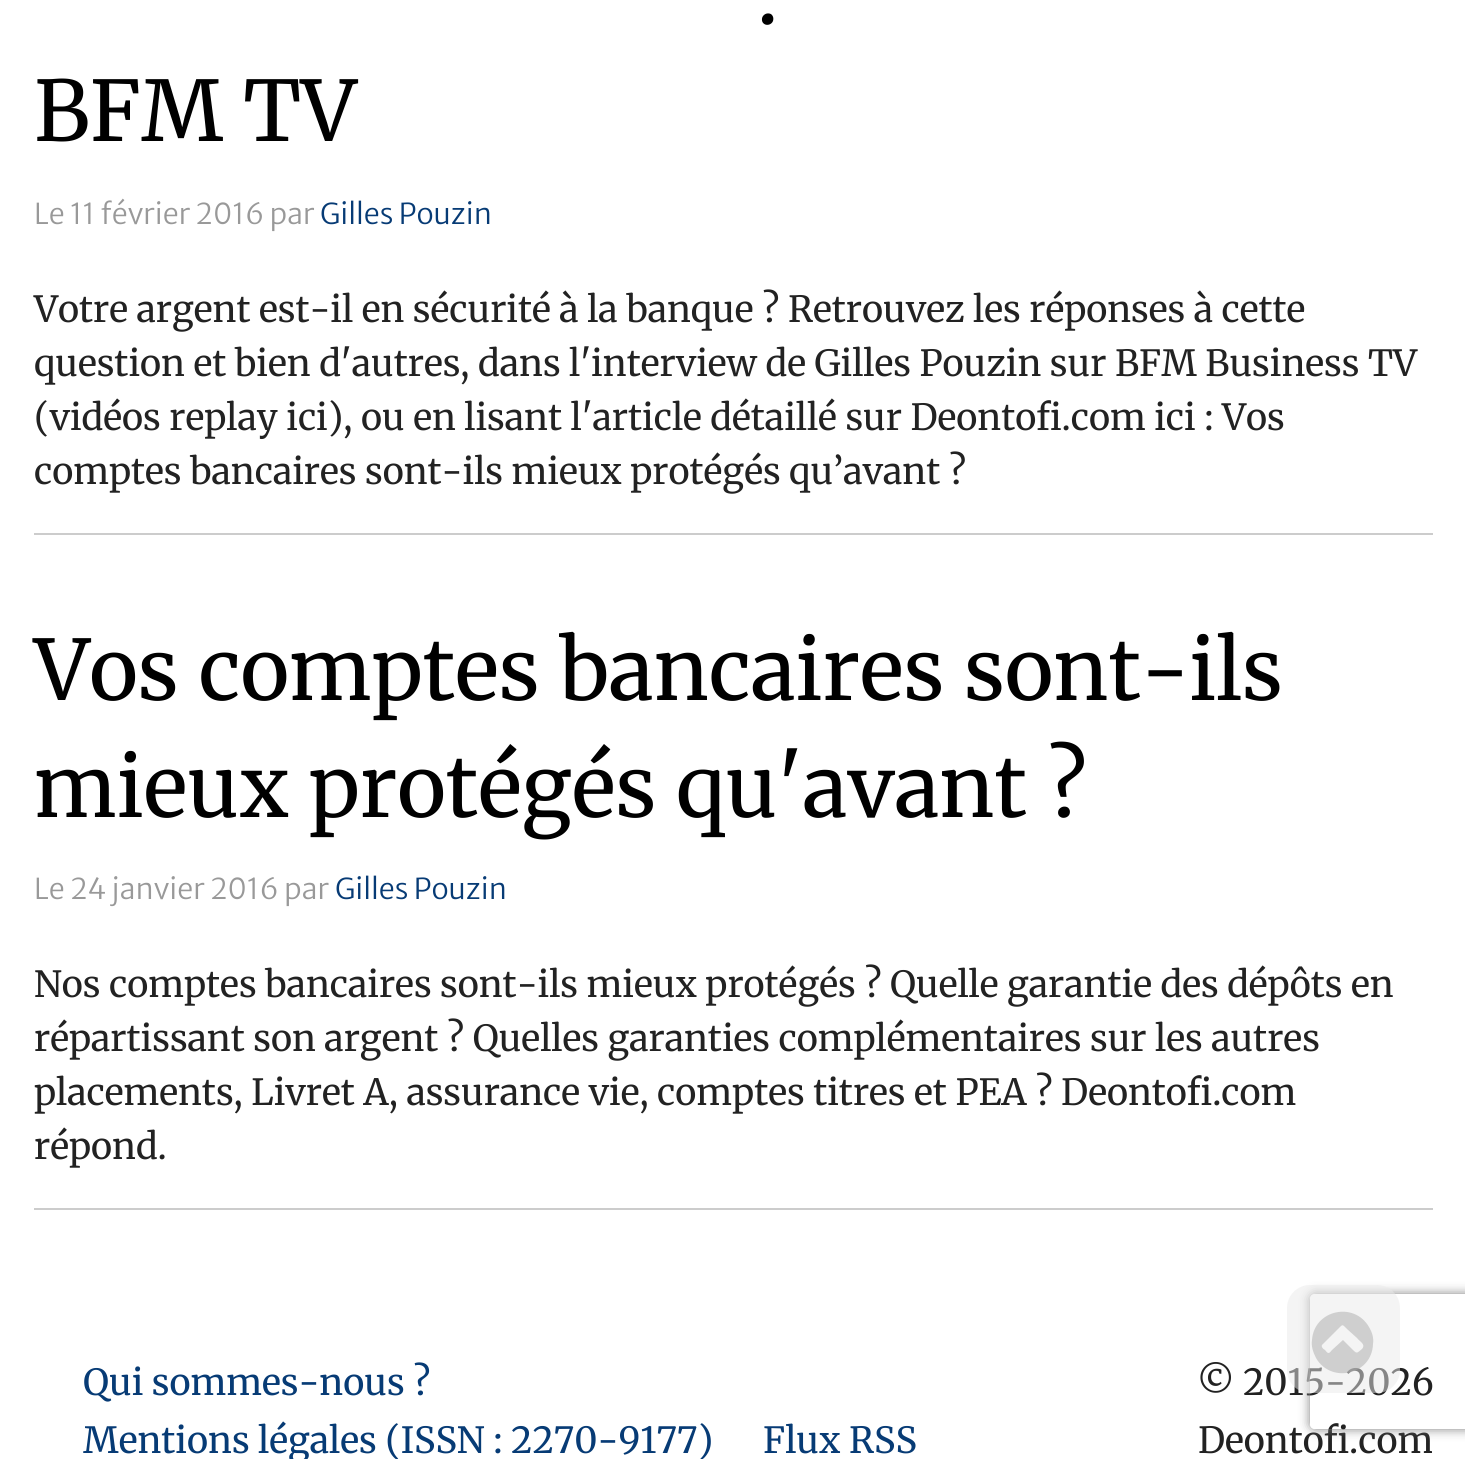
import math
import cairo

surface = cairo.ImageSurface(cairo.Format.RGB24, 1465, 1459)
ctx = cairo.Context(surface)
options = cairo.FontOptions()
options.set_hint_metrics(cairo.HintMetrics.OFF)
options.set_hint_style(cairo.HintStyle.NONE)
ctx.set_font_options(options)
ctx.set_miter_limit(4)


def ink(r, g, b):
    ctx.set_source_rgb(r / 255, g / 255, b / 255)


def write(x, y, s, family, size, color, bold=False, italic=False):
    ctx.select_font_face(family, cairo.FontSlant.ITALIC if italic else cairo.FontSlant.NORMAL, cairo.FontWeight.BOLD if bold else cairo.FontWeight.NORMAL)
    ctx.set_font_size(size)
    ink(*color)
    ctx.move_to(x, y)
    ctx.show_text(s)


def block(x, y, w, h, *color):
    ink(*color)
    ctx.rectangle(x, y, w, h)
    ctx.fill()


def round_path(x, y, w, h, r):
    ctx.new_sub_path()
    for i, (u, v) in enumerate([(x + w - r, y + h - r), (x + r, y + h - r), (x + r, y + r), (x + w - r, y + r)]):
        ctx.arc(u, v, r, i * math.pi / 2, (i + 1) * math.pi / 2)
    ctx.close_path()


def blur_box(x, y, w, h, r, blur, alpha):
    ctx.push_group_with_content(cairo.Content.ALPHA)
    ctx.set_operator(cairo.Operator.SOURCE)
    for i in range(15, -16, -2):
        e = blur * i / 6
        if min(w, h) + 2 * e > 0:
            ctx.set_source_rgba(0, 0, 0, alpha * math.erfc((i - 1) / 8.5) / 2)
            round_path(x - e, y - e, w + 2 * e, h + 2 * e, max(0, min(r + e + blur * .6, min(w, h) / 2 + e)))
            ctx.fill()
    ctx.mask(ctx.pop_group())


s1 = dict(family="Merriweather", size=83.25, color=(0, 0, 0))
s2 = dict(family="Merriweather Sans Light", size=28.75, color=(153, 153, 153))
s3 = dict(family="Merriweather Sans Light", size=28.75, color=(7, 59, 117))
s4 = dict(family="Merriweather", size=36, color=(34, 34, 34))
s5 = dict(family="Merriweather", size=36, color=(7, 59, 117))

ink(255, 255, 255)
ctx.paint()
block(34, 533, 1399, 2, 204, 204, 204)
write(757, 24, ".", **s1)
write(34, 141, "BFM TV", **s1)
write(34, 224, "Le 11 février 2016 par", **s2)
write(320, 224, "Gilles Pouzin", **s3)
write(34, 322, "Votre argent est-il en sécurité à la banque ? Retrouvez les réponses à cette", **s4)
write(34, 376, "question et bien d'autres, dans l'interview de Gilles Pouzin sur BFM Business TV", **s4)
write(34, 430, "(vidéos replay ici), ou en lisant l'article détaillé sur Deontofi.com ici : Vos", **s4)
write(34, 484, "comptes bancaires sont-ils mieux protégés qu’avant ?", **s4)
block(34, 1208, 1399, 2, 204, 204, 204)
write(34, 700, "Vos comptes bancaires sont-ils", **s1)
write(34, 817, "mieux protégés qu'avant ?", **s1)
write(34, 899, "Le 24 janvier 2016 par", **s2)
write(335, 899, "Gilles Pouzin", **s3)
write(34, 997, "Nos comptes bancaires sont-ils mieux protégés ? Quelle garantie des dépôts en", **s4)
write(34, 1051, "répartissant son argent ? Quelles garanties complémentaires sur les autres", **s4)
write(34, 1105, "placements, Livret A, assurance vie, comptes titres et PEA ? Deontofi.com", **s4)
write(34, 1159, "répond.", **s4)
write(83, 1395, "Qui sommes-nous ?", **s5)
write(83, 1453, "Mentions légales (ISSN : 2270-9177)", **s5)
write(763, 1453, "Flux RSS", **s5)
write(1197, 1395, "© 2015-2026", **s4)
write(1198, 1453, "Deontofi.com", **s4)
ctx.save()
ctx.set_fill_rule(cairo.FillRule.EVEN_ODD)
ctx.new_path()
ctx.move_to(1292, 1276)
ctx.line_to(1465, 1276)
ctx.line_to(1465, 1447)
ctx.line_to(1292, 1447)
ctx.close_path()
ctx.move_to(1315, 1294)
ctx.line_to(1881, 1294)
ctx.curve_to(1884, 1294, 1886, 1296, 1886, 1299)
ctx.line_to(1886, 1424)
ctx.curve_to(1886, 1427, 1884, 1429, 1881, 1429)
ctx.line_to(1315, 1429)
ctx.curve_to(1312, 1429, 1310, 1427, 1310, 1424)
ctx.line_to(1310, 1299)
ctx.curve_to(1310, 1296, 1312, 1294, 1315, 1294)
ctx.close_path()
ctx.clip()
ink(128, 128, 128)
blur_box(1310, 1294, 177, 135, 5, 5.5, 1)
ctx.restore()
ctx.set_source_rgba(0.918, 0.918, 0.918, 0.5)
round_path(1287, 1285, 113, 108, 23)
ctx.fill()
ctx.set_source_rgba(0.667, 0.667, 0.667, 0.5)
ctx.new_path()
ctx.move_to(1316, 1358)
ctx.curve_to(1313, 1352, 1311, 1346, 1312, 1340)
ctx.curve_to(1314, 1310, 1354, 1301, 1369, 1327)
ctx.curve_to(1372, 1332, 1374, 1338, 1373, 1344)
ctx.curve_to(1372, 1375, 1331, 1384, 1316, 1358)
ctx.close_path()
ctx.move_to(1323, 1344)
ctx.curve_to(1320, 1346, 1323, 1349, 1325, 1350)
ctx.curve_to(1328, 1354, 1329, 1354, 1332, 1350)
ctx.line_to(1343, 1340)
ctx.line_to(1353, 1350)
ctx.curve_to(1357, 1354, 1357, 1353, 1362, 1349)
ctx.curve_to(1366, 1344, 1360, 1342, 1357, 1338)
ctx.line_to(1347, 1329)
ctx.curve_to(1342, 1324, 1343, 1324, 1338, 1329)
ctx.close_path()
ctx.fill()
surface.write_to_png("screenshot.png")
